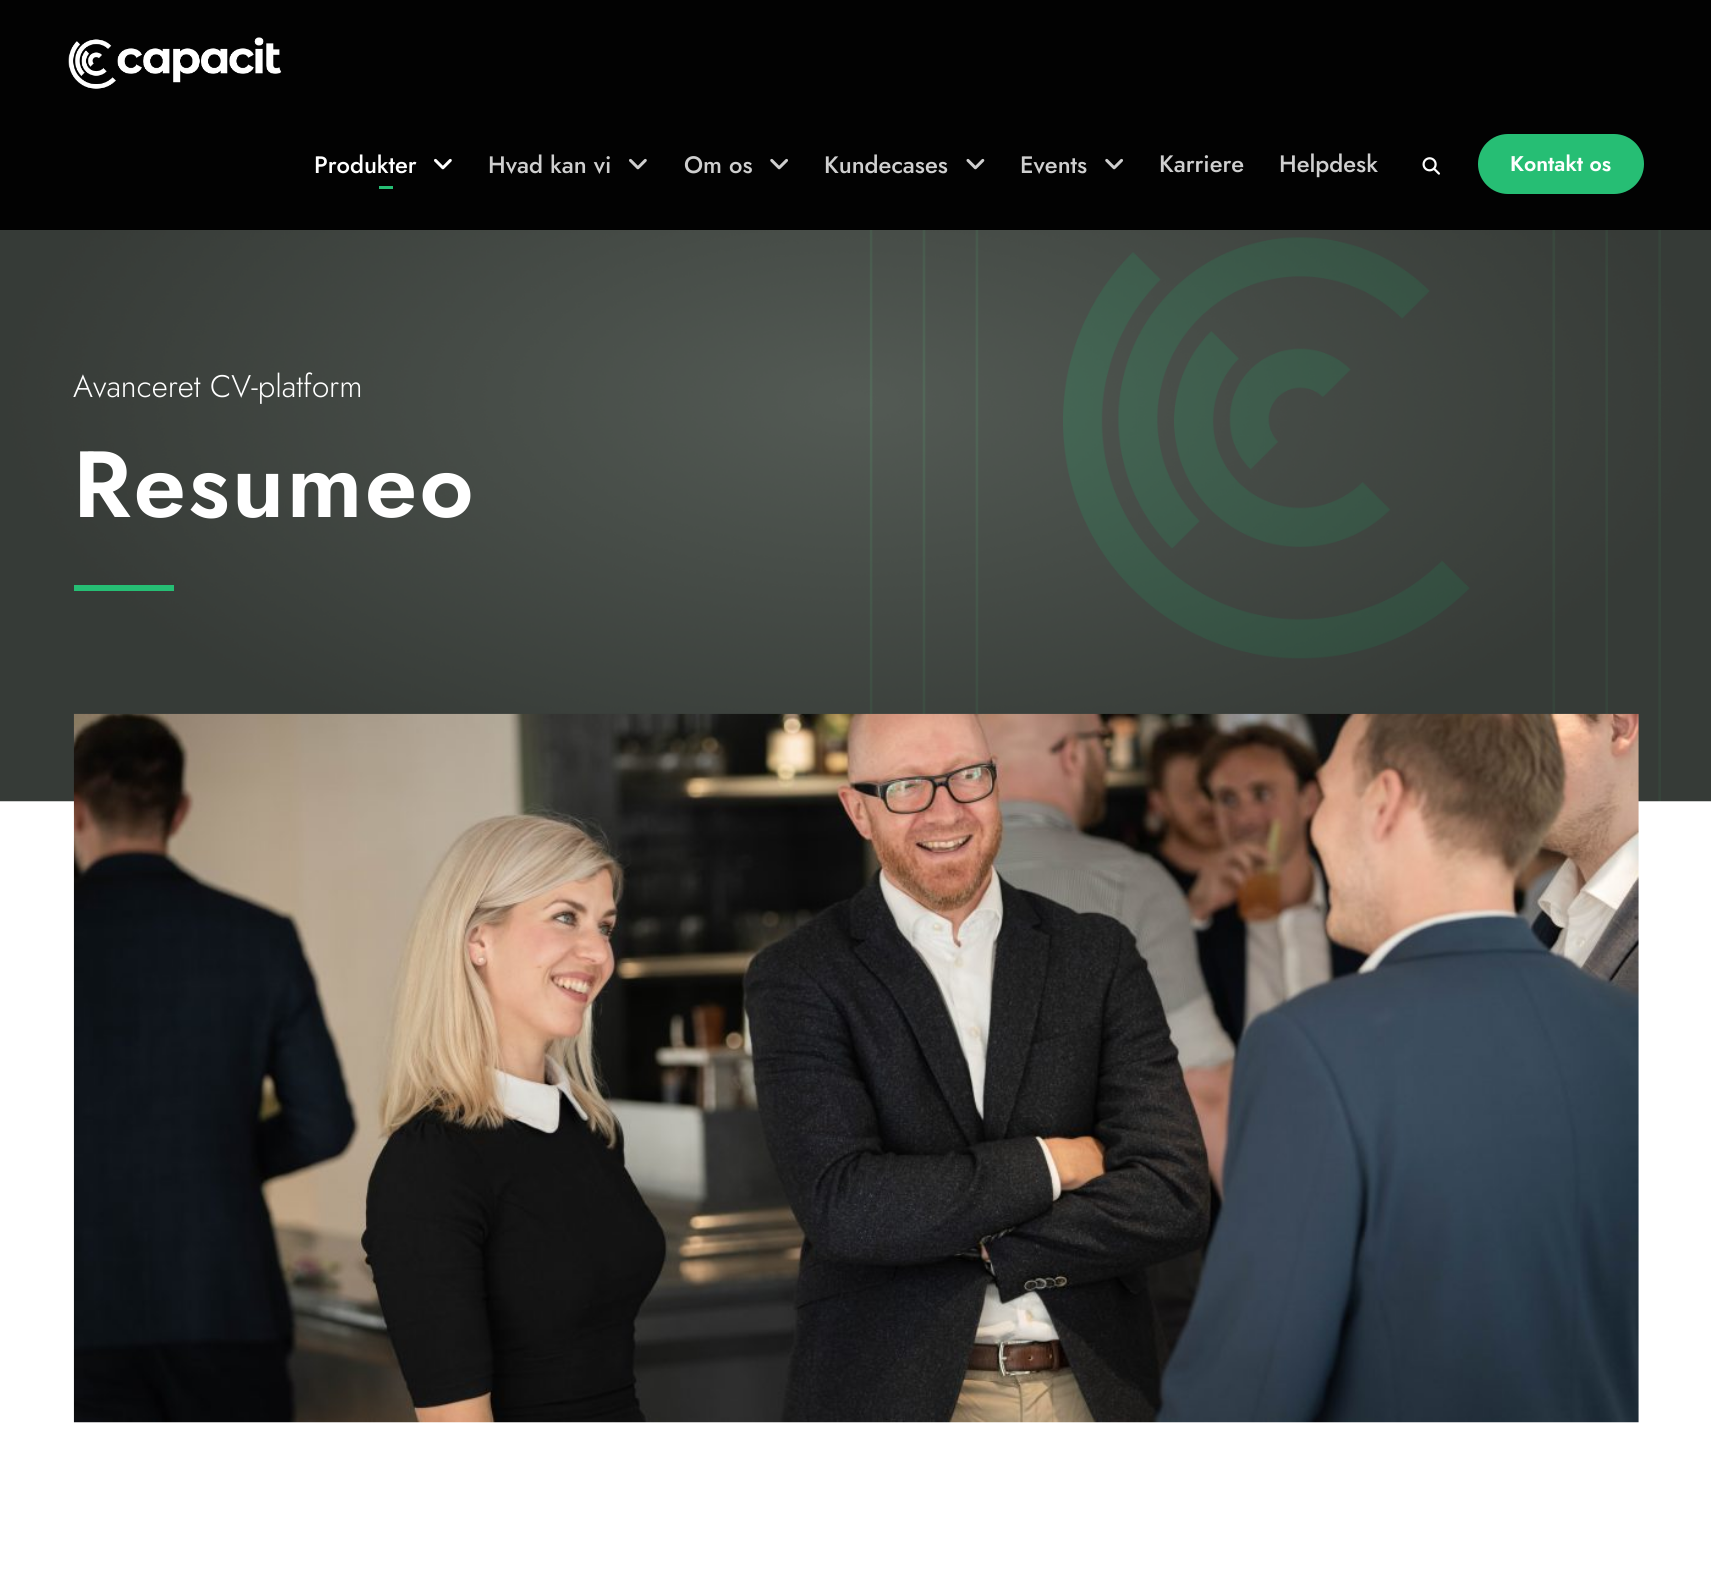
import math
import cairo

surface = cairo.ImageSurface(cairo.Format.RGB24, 1711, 1572)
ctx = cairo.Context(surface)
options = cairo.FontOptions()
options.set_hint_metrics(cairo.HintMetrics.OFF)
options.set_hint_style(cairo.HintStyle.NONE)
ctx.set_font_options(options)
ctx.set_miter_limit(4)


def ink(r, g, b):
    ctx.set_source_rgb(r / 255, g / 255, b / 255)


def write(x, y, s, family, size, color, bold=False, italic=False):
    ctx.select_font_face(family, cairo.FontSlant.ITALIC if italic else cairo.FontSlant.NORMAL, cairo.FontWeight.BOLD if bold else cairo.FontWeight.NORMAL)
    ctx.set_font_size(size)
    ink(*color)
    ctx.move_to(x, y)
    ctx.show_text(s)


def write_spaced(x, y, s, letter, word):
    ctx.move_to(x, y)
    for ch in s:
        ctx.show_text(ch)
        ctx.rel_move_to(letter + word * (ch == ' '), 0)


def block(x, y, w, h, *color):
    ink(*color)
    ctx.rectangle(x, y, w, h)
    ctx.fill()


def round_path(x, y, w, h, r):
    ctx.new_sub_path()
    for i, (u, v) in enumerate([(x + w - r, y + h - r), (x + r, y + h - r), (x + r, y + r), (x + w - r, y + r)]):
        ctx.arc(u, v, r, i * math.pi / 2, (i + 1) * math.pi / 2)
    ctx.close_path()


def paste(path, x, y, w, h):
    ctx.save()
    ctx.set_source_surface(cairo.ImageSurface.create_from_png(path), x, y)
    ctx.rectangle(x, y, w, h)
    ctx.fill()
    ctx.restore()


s1 = dict(family="Jost Medium", size=23.75, color=(255, 255, 255))
s2 = dict(family="Jost Medium", size=23.75, color=(207, 207, 207))
s3 = dict(family="Jost SemiBold", size=21.25, color=(255, 255, 255))
s4 = dict(family="Jost Light", size=31.25, color=(255, 255, 255))

ink(255, 255, 255)
ctx.paint()
block(0, 0, 1711, 230, 2, 2, 2)
paste("pic1.png", 68, 37, 214, 52)
write(314, 173, "Produkter", **s1)
paste("pic2.png", 434, 158, 18, 12)
write(488, 173, "Hvad kan vi", **s2)
paste("pic3.png", 629, 158, 18, 12)
write(684, 173, "Om os", **s2)
paste("pic4.png", 770, 158, 18, 12)
write(824, 173, "Kundecases", **s2)
paste("pic5.png", 966, 158, 19, 12)
write(1020, 173, "Events", **s2)
paste("pic4.png", 1105, 158, 18, 12)
write(1159, 172, "Karriere", **s2)
write(1279, 172, "Helpdesk", **s2)
block(379, 186, 14, 3, 38, 190, 116)
paste("pic6.png", 1422, 157, 18, 18)
round_path(1478, 134, 166, 60, 30)
ctx.fill()
write(1510, 171, "Kontakt os", **s3)
paste("pic7.png", 0, 230, 1711, 572)
write(73, 397, "Avanceret CV-platform", **s4)
ctx.select_font_face("Jost SemiBold")
ctx.set_font_size(93.75)
write_spaced(73, 517, "Resumeo", 2.5, 0)
block(74, 585, 100, 6, 38, 190, 116)
paste("pic8.png", 73, 713, 1566, 710)
surface.write_to_png("screenshot.png")
